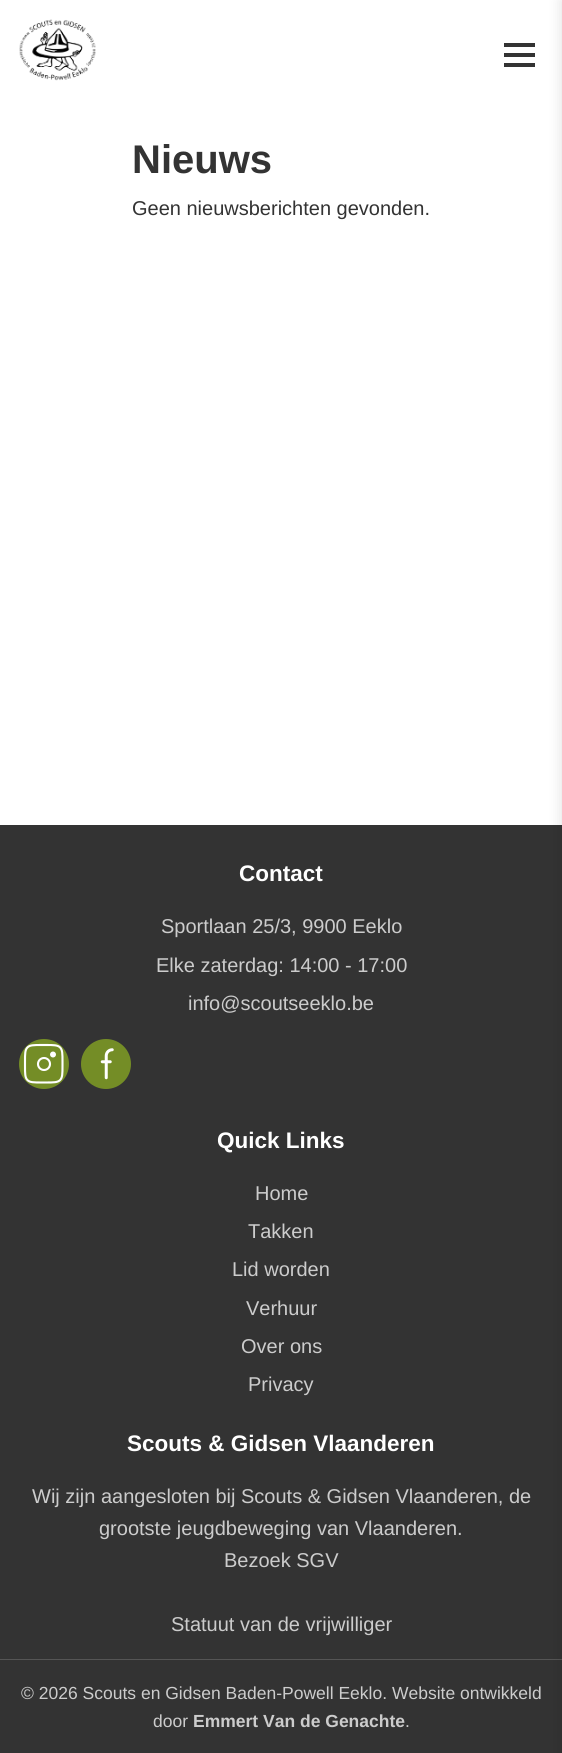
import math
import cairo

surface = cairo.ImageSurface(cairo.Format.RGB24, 562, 1753)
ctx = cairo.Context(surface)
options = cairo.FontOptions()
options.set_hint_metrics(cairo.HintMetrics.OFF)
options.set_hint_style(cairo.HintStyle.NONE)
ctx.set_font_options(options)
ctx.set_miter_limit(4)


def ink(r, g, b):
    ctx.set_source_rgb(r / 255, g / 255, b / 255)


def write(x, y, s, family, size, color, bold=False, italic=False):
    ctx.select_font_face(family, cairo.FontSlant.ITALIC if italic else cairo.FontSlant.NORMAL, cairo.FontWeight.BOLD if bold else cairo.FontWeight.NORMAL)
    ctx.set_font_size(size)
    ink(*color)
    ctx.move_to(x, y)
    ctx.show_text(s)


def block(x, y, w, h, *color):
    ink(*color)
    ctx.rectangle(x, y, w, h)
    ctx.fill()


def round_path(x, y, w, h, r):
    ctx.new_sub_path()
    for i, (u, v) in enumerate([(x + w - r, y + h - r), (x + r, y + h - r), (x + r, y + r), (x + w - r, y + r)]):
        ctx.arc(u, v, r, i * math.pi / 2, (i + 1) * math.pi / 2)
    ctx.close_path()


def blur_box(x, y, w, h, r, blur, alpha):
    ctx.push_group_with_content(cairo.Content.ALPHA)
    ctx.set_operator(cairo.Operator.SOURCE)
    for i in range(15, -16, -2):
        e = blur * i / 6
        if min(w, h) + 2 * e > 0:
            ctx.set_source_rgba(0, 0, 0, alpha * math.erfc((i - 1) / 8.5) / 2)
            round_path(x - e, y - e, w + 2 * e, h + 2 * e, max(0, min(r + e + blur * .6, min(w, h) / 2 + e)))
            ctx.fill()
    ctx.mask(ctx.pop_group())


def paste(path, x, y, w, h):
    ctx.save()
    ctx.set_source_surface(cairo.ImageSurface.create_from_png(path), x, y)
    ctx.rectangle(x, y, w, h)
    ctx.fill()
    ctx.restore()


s1 = dict(family="Liberation Sans", size=40, color=(51, 51, 51), bold=True)
s2 = dict(family="Liberation Sans", size=20, color=(51, 51, 51))
s3 = dict(family="Liberation Sans", size=22.5, color=(255, 255, 255), bold=True)
s4 = dict(family="Liberation Sans", size=20, color=(204, 204, 204))
s5 = dict(family="Liberation Sans", size=17.5, color=(204, 204, 204))
s6 = dict(family="Liberation Sans", size=17.5, color=(204, 204, 204), bold=True)

ink(255, 255, 255)
ctx.paint()
paste("pic1.png", 19, 19, 77, 62)
block(504, 43, 31, 4, 51, 51, 51)
block(504, 53, 31, 4, 51, 51, 51)
block(504, 63, 31, 4, 51, 51, 51)
block(0, 825, 562, 928, 51, 51, 51)
block(0, 1659, 562, 1, 85, 85, 85)
ink(0, 0, 0)
blur_box(560, 0, 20, 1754, 0, 6, 0.1)
write(132, 173, "Nieuws", **s1)
write(132, 215, "Geen nieuwsberichten gevonden.", **s2)
write(239, 881, "Contact", **s3)
write(161, 933, "Sportlaan 25/3, 9900 Eeklo", **s4)
write(156, 972, "Elke zaterdag: 14:00 - 17:00", **s4)
write(188, 1010, "info@scoutseeklo.be", **s4)
ink(116, 141, 38)
ctx.new_path()
ctx.arc(44, 1064, 25, 0, 2 * math.pi)
ctx.fill()
paste("pic2.png", 23, 1043, 41, 41)
ctx.arc(106, 1064, 25, 0, 2 * math.pi)
ctx.fill()
paste("pic3.png", 100, 1048, 14, 32)
write(217, 1148, "Quick Links", **s3)
write(255, 1200, "Home", **s4)
write(248, 1238, "Takken", **s4)
write(232, 1276, "Lid worden", **s4)
write(246, 1315, "Verhuur", **s4)
write(241, 1353, "Over ons", **s4)
write(248, 1391, "Privacy", **s4)
write(127, 1451, "Scouts & Gidsen Vlaanderen", **s3)
write(32, 1503, "Wij zijn aangesloten bij Scouts & Gidsen Vlaanderen, de", **s4)
write(99, 1535, "grootste jeugdbeweging van Vlaanderen.", **s4)
write(224, 1567, "Bezoek SGV", **s4)
write(171, 1631, "Statuut van de vrijwilliger", **s4)
write(21, 1699, "© 2026 Scouts en Gidsen Baden-Powell Eeklo. Website ontwikkeld", **s5)
write(153, 1727, "door", **s5)
write(193, 1727, "Emmert Van de Genachte", **s6)
write(405, 1727, ".", **s5)
surface.write_to_png("screenshot.png")
